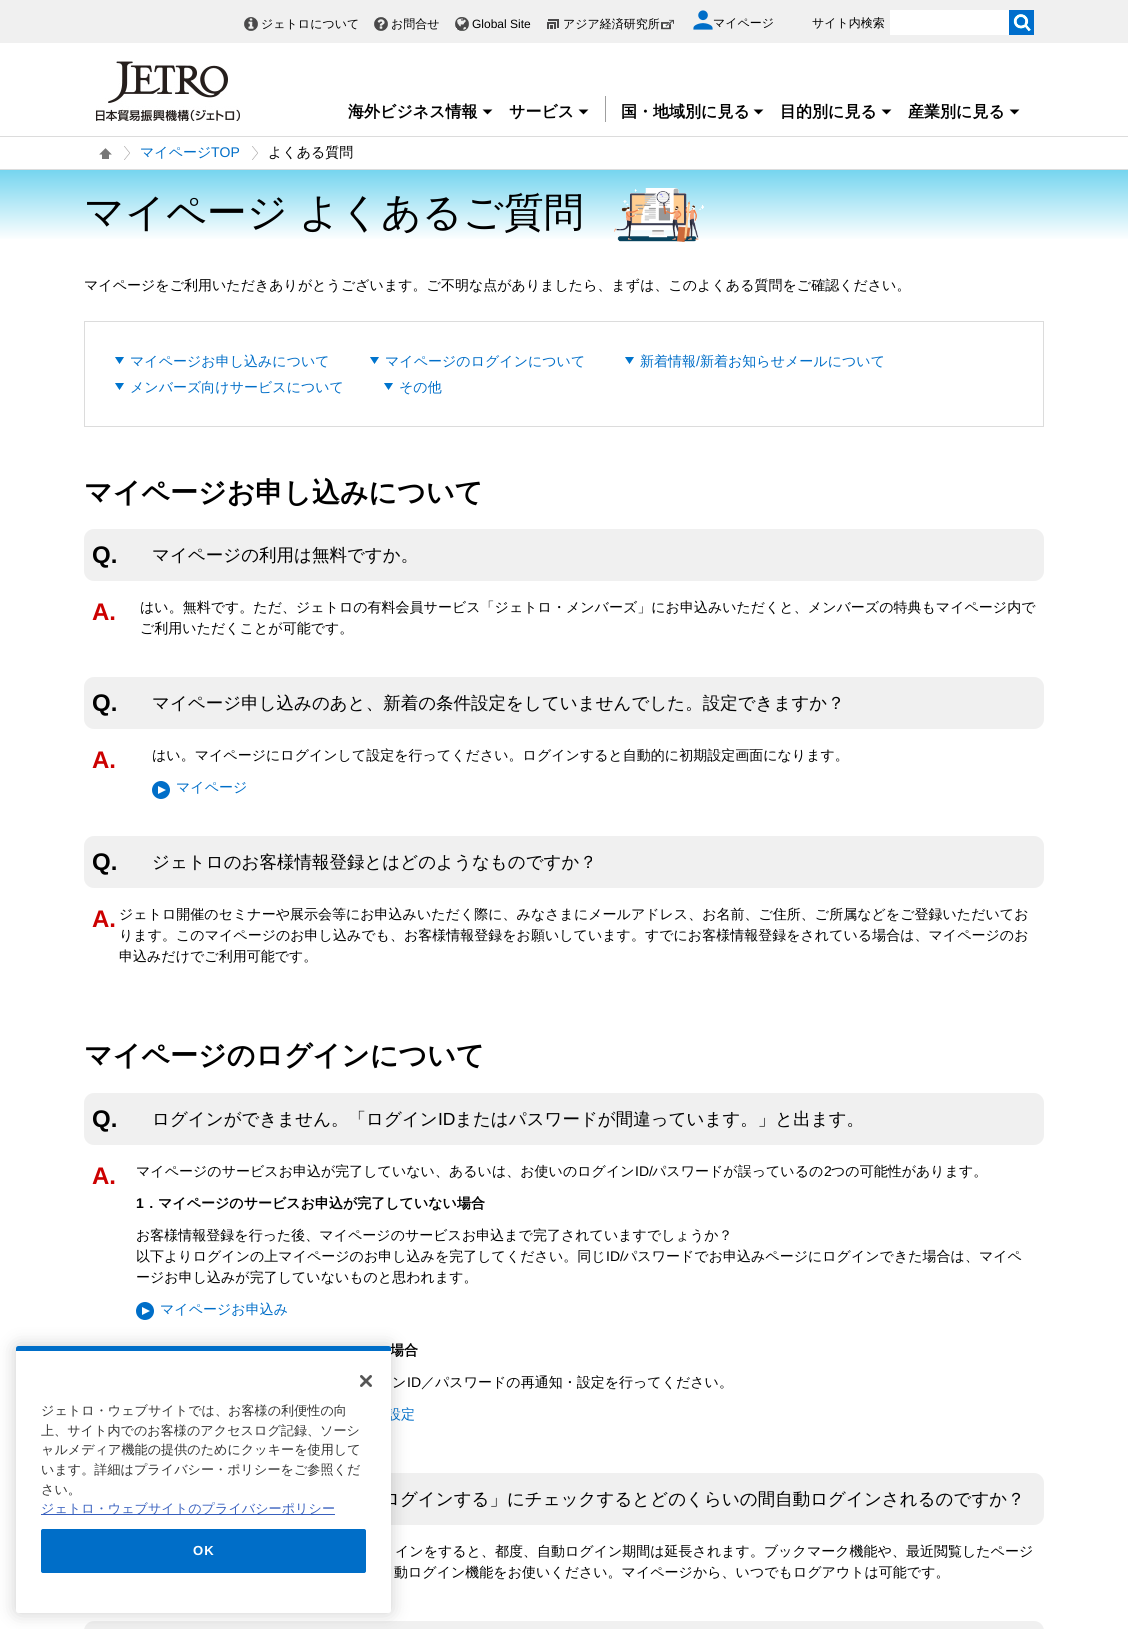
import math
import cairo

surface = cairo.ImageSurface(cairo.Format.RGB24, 1128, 1629)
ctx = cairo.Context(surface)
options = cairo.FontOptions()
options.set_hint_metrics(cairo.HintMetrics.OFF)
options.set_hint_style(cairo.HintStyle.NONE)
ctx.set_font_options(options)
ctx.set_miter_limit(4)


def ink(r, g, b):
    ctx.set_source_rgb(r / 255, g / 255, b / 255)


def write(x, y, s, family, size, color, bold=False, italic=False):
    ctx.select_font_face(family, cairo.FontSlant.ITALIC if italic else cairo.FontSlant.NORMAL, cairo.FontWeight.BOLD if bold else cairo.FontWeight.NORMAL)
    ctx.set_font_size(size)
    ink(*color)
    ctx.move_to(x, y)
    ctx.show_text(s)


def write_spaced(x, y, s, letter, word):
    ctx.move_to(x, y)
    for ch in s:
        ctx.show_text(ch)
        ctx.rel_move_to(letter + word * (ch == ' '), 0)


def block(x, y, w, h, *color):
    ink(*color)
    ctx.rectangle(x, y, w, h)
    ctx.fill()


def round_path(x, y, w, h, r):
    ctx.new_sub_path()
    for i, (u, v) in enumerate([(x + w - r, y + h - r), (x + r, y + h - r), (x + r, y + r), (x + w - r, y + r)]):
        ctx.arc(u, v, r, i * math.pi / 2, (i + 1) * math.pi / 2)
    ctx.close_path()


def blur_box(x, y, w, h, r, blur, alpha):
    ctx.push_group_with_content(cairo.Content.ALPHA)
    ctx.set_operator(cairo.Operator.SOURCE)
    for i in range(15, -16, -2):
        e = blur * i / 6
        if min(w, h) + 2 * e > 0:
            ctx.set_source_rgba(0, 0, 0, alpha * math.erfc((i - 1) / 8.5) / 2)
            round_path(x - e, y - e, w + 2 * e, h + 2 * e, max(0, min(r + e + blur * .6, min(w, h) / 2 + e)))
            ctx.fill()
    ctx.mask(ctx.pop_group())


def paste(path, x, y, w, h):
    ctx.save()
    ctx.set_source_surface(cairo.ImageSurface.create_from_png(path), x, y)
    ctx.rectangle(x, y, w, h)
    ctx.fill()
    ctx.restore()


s1 = dict(family="WenQuanYi Zen Hei Medium", size=12, color=(0, 0, 0))
s2 = dict(family="Liberation Sans", size=12, color=(0, 0, 0))
s3 = dict(family="WenQuanYi Zen Hei", size=16, color=(0, 0, 0), bold=True)
s4 = dict(family="WenQuanYi Zen Hei Medium", size=14, color=(0, 110, 200))
s5 = dict(family="Liberation Sans", size=14, color=(0, 110, 200))
s6 = dict(family="WenQuanYi Zen Hei Medium", size=14, color=(0, 0, 0))
s7 = dict(family="WenQuanYi Zen Hei Medium", size=40, color=(0, 0, 0))
s8 = dict(family="WenQuanYi Zen Hei", size=28, color=(0, 0, 0), bold=True)
s9 = dict(family="Liberation Sans", size=24, color=(0, 0, 0), bold=True)
s10 = dict(family="WenQuanYi Zen Hei Medium", size=17.5, color=(0, 0, 0))
s11 = dict(family="Liberation Sans", size=24, color=(204, 0, 0), bold=True)
s12 = dict(family="Liberation Sans", size=17.5, color=(0, 0, 0))
s13 = dict(family="Liberation Sans", size=14, color=(0, 0, 0))
s14 = dict(family="Liberation Sans", size=14, color=(0, 0, 0), bold=True)
s15 = dict(family="WenQuanYi Zen Hei", size=14, color=(0, 0, 0), bold=True)
s16 = dict(family="WenQuanYi Zen Hei Medium", size=13.1, color=(51, 51, 51))
s17 = dict(family="WenQuanYi Zen Hei Medium", size=13.1, color=(56, 96, 190))

ink(255, 255, 255)
ctx.paint()
block(0, 0, 1128, 43, 240, 240, 240)
paste("pic1.png", 244, 17, 14, 14)
write(261, 28, "ジェトロについて", **s1)
paste("pic2.png", 374, 17, 14, 14)
write(391, 28, "お問合せ", **s1)
paste("pic3.png", 455, 17, 14, 14)
write(472, 28, "Global Site", **s2)
paste("pic4.png", 547, 19, 12, 10)
write(563, 28, "アジア経済研究所", **s1)
paste("pic5.png", 661, 19, 13, 11)
paste("pic6.png", 693, 10, 20, 20)
write(713, 27, "マイページ", **s1)
write(812, 27, "サイト内検索", **s1)
block(890, 10, 119, 25, 255, 255, 255)
paste("pic7.png", 1009, 10, 25, 25)
paste("pic8.png", 96, 61, 144, 60)
write(348, 117, "海外ビジネス情報", **s3)
paste("pic9.png", 482, 109, 11, 6)
block(605, 96, 1, 26, 159, 159, 159)
write(509, 117, "サービス", **s3)
paste("pic9.png", 578, 109, 11, 6)
write(621, 117, "国・地域別に見る", **s3)
paste("pic9.png", 753, 109, 11, 6)
write(780, 117, "目的別に見る", **s3)
paste("pic9.png", 881, 109, 11, 6)
write(908, 117, "産業別に見る", **s3)
paste("pic9.png", 1009, 109, 11, 6)
block(0, 136, 1128, 1, 220, 220, 220)
block(0, 169, 1128, 1, 220, 220, 220)
paste("pic10.png", 124, 146, 6, 14)
paste("pic11.png", 99, 148, 13, 11)
paste("pic10.png", 252, 146, 6, 14)
write(140, 157, "マイページ", **s4)
write(211, 157, "TOP", **s5)
write(268, 157, "よくある質問", **s6)
gradient = cairo.LinearGradient(564, 170, 564, 272)
gradient.add_color_stop_rgba(0, 0.459, 0.835, 0.937, 1)
gradient.add_color_stop_rgba(0.69, 1, 1, 1, 1)
ctx.set_source(gradient)
ctx.rectangle(0, 170, 1128, 69)
ctx.fill()
write(84, 226, "マイページ", **s7)
write(299, 226, "よくあるご質問", **s7)
paste("pic12.png", 614, 188, 90, 54)
write(84, 290, "マイページをご利用いただきありがとうございます。ご不明な点がありましたら、まずは、このよくある質問をご確認ください。", **s6)
ctx.rectangle(84.5, 321.5, 959, 105)
ink(220, 220, 220)
ctx.set_line_width(1)
ctx.stroke()
paste("pic13.png", 115, 357, 9, 7)
write(130, 366, "マイページお申し込みについて", **s4)
paste("pic13.png", 370, 357, 9, 7)
write(385, 366, "マイページのログインについて", **s4)
paste("pic13.png", 625, 357, 9, 7)
write(640, 366, "新着情報", **s4)
write(696, 366, "/", **s5)
write(700, 366, "新着お知らせメールについて", **s4)
paste("pic13.png", 115, 383, 9, 7)
write(130, 392, "メンバーズ向けサービスについて", **s4)
paste("pic13.png", 384, 383, 9, 7)
write(399, 392, "その他", **s4)
write(84, 502, "マイページお申し込みについて", **s8)
ink(240, 240, 240)
round_path(84, 529, 960, 52, 10)
ctx.fill()
write(92, 563, "Q.", **s9)
write(152, 561, "マイページの利用は無料ですか。", **s10)
write(92, 620, "A.", **s11)
write(140, 612, "はい。無料です。ただ、ジェトロの有料会員サービス「ジェトロ・メンバーズ」にお申込みいただくと、メンバーズの特典もマイページ内で", **s6)
write(140, 633, "ご利用いただくことが可能です。", **s6)
ink(240, 240, 240)
round_path(84, 677, 960, 52, 10)
ctx.fill()
write(92, 711, "Q.", **s9)
write(152, 709, "マイページ申し込みのあと、新着の条件設定をしていませんでした。設定できますか？", **s10)
write(92, 768, "A.", **s11)
write(152, 760, "はい。マイページにログインして設定を行ってください。ログインすると自動的に初期設定画面になります。", **s6)
paste("pic14.png", 152, 781, 18, 18)
write(176, 792, "マイページ", **s4)
ink(240, 240, 240)
round_path(84, 836, 960, 52, 10)
ctx.fill()
write(92, 870, "Q.", **s9)
write(152, 868, "ジェトロのお客様情報登録とはどのようなものですか？", **s10)
write(92, 927, "A.", **s11)
write(119, 919, "ジェトロ開催のセミナーや展示会等にお申込みいただく際に、みなさまにメールアドレス、お名前、ご住所、ご所属などをご登録いただいてお", **s6)
write(119, 940, "ります。このマイページのお申し込みでも、お客様情報登録をお願いしています。すでにお客様情報登録をされている場合は、マイページのお", **s6)
write(119, 961, "申込みだけでご利用可能です。", **s6)
write(84, 1065, "マイページのログインについて", **s8)
ink(240, 240, 240)
round_path(84, 1093, 960, 52, 10)
ctx.fill()
write(92, 1127, "Q.", **s9)
write(152, 1125, "ログインができません。「ログイン", **s10)
write(438, 1125, "ID", **s12)
write(455, 1125, "またはパスワードが間違っています。」と出ます。", **s10)
write(92, 1184, "A.", **s11)
write(136, 1176, "マイページのサービスお申込が完了していない、あるいは、お使いのログイン", **s6)
write(635, 1176, "ID/", **s13)
write(652, 1176, "パスワードが誤っているの", **s6)
write(824, 1176, "2", **s13)
write(831, 1176, "つの可能性があります。", **s6)
write(136, 1208, "1", **s14)
write(144, 1208, "．マイページのサービスお申込が完了していない場合", **s15)
write(136, 1240, "お客様情報登録を行った後、マイページのサービスお申込まで完了されていますでしょうか？", **s6)
write(136, 1261, "以下よりログインの上マイページのお申し込みを完了してください。同じ", **s6)
write(606, 1261, "ID/", **s13)
write(623, 1261, "パスワードでお申込みページにログインできた場合は、マイペ", **s6)
write(136, 1282, "ージお申し込みが完了していないものと思われます。", **s6)
paste("pic14.png", 136, 1302, 18, 18)
write(160, 1314, "マイページお申込み", **s4)
write(390, 1355, "場合", **s15)
write(392, 1387, "ン", **s6)
write(407, 1387, "ID", **s13)
write(421, 1387, "／パスワードの再通知・設定を行ってください。", **s6)
write(387, 1419, "設定", **s4)
ink(240, 240, 240)
round_path(84, 1473, 960, 52, 10)
ctx.fill()
write(382, 1505, "ログインする」にチェックするとどのくらいの間自動ログインされるのですか？", **s10)
write(395, 1556, "インをすると、都度、自動ログイン期間は延長されます。ブックマーク機能や、最近閲覧したページ", **s6)
write(394, 1577, "動ログイン機能をお使いください。マイページから、いつでもログアウトは可能です。", **s6)
ink(240, 240, 240)
round_path(84, 1621, 960, 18, 10)
ctx.fill()
ink(0, 0, 0)
blur_box(16, 1346, 375, 267, 2.5, 9, 0.2)
ink(255, 255, 255)
round_path(16, 1346, 375, 267, 2.5)
ctx.fill()
ink(0, 110, 200)
ctx.new_path()
ctx.move_to(18.5, 1346)
ctx.line_to(388.5, 1346)
ctx.curve_to(390, 1346, 391, 1347, 391, 1348.5)
ctx.line_to(391, 1351)
ctx.line_to(16, 1351)
ctx.line_to(16, 1348.5)
ctx.curve_to(16, 1347, 17, 1346, 18.5, 1346)
ctx.close_path()
ctx.fill()
paste("pic15.png", 360, 1375, 12, 12)
write(41, 1415, "ジェトロ・ウェブサイトでは、お客様の利便性の向", **s16)
write(41, 1435, "上、サイト内でのお客様のアクセスログ記録、ソーシ", **s16)
write(41, 1454, "ャルメディア機能の提供のためにクッキーを使用して", **s16)
write(41, 1474, "います。詳細はプライバシー・ポリシーをご参照くだ", **s16)
write(41, 1494, "さい。", **s16)
block(41, 1514, 294, 1, 56, 96, 190)
write(41, 1513, "ジェトロ・ウェブサイトのプライバシーポリシー", **s17)
ink(0, 110, 200)
round_path(41.5, 1529.5, 324, 43, 1.5)
ctx.fill_preserve()
ctx.stroke()
ctx.select_font_face("Liberation Sans", cairo.FontSlant.NORMAL, cairo.FontWeight.BOLD)
ink(255, 255, 255)
write_spaced(193, 1555, "OK", 1, 0)
surface.write_to_png("screenshot.png")
